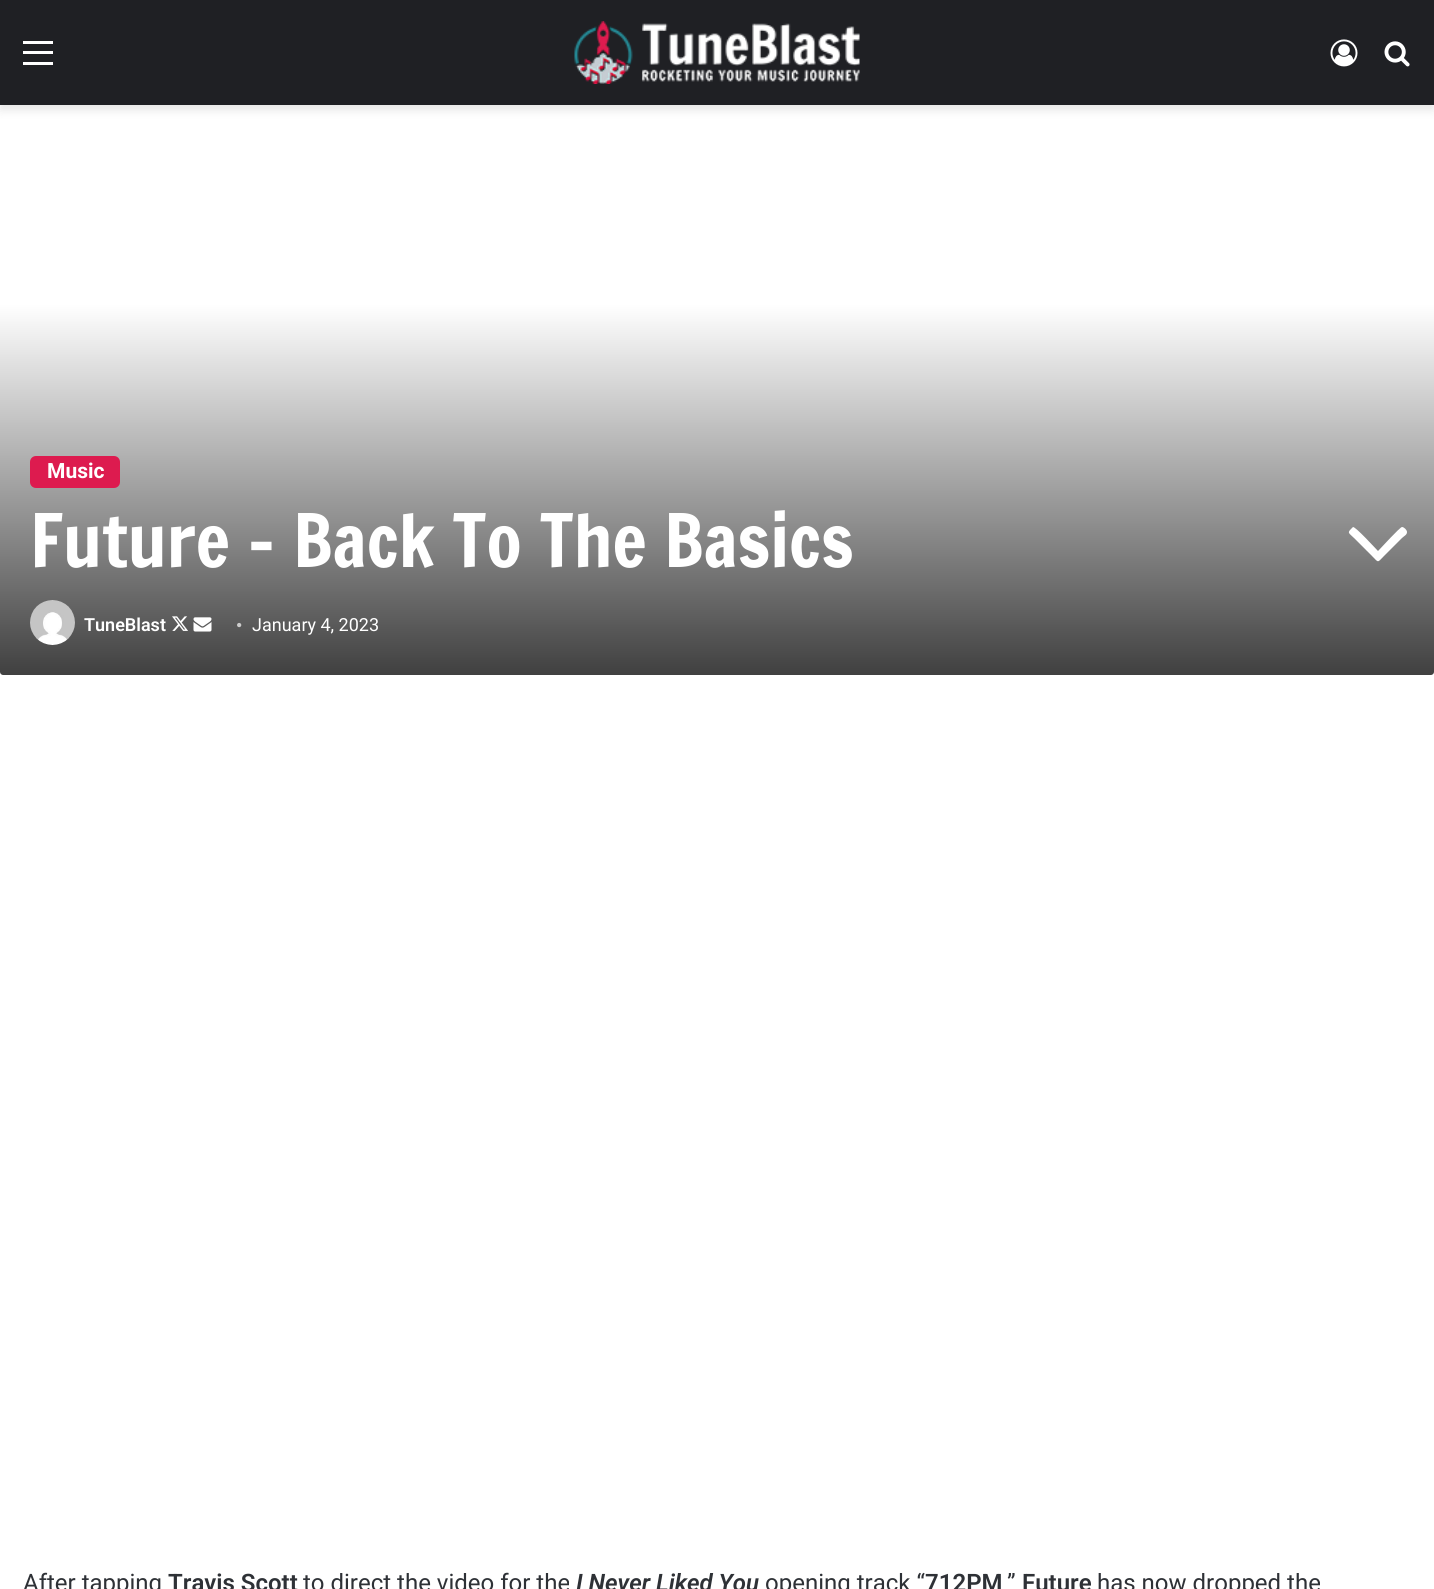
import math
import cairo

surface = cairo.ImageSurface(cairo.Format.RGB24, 1434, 1589)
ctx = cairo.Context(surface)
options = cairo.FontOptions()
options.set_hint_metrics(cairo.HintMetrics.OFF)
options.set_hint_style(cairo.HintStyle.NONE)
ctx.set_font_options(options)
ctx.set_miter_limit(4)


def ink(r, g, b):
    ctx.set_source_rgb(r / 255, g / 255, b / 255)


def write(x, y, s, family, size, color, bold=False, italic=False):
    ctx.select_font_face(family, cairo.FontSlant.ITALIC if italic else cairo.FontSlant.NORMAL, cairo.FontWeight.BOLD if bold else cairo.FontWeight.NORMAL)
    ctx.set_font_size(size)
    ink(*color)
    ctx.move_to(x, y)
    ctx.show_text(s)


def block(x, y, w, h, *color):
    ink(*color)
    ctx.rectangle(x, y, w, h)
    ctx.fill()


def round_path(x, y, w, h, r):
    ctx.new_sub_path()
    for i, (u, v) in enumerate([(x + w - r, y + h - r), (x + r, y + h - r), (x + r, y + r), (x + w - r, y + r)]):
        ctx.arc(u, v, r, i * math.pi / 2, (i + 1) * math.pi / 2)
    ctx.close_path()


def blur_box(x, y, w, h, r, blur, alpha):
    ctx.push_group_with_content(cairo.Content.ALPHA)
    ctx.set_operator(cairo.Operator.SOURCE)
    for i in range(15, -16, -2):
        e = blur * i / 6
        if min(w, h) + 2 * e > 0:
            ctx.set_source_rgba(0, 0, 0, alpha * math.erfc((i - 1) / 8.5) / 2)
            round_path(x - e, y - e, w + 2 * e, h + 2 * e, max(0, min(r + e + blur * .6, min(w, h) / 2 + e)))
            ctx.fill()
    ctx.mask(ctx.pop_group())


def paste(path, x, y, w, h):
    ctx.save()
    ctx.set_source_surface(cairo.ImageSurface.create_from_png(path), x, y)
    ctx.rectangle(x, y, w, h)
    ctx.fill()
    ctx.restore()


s1 = dict(family="Roboto", size=21, color=(255, 255, 255), bold=True)
s2 = dict(family="Francois One", size=72, color=(255, 255, 255))
s3 = dict(family="Roboto SemiBold", size=18, color=(255, 255, 255))
s4 = dict(family="Liberation Serif", size=18, color=(204, 204, 204))
s5 = dict(family="Roboto", size=18, color=(255, 255, 255))
s6 = dict(family="Roboto", size=24, color=(46, 49, 54))
s7 = dict(family="Roboto SemiBold", size=24, color=(46, 49, 54))
s8 = dict(family="Roboto SemiBold", size=24, color=(46, 49, 54), italic=True)

ink(255, 255, 255)
ctx.paint()
ink(0, 0, 0)
blur_box(0, 5, 1434, 105, 0, 5, 0.1)
block(0, 0, 1434, 105, 31, 32, 36)
block(23, 51, 30, 3, 255, 255, 255)
block(23, 41, 30, 3, 255, 255, 255)
block(23, 62, 30, 3, 255, 255, 255)
paste("pic1.png", 574, 21, 286, 63)
paste("pic2.png", 1330, 39, 28, 28)
paste("pic3.png", 1384, 41, 26, 26)
gradient = cairo.LinearGradient(717, 304, 717, 675)
gradient.add_color_stop_rgba(0, 1, 1, 1, 1)
gradient.add_color_stop_rgba(1, 0.251, 0.251, 0.251, 1)
ctx.set_source(gradient)
ctx.new_path()
ctx.move_to(0, 305)
ctx.line_to(1434, 305)
ctx.line_to(1434, 672)
ctx.curve_to(1434, 673.5, 1432.5, 675, 1431, 675)
ctx.line_to(3, 675)
ctx.curve_to(1.5, 675, 0, 673.5, 0, 672)
ctx.close_path()
ctx.fill()
ink(221, 27, 79)
round_path(30, 456, 90, 32, 6)
ctx.fill()
write(47, 478, "Music", **s1)
write(30, 567, "Future – Back To The Basics", **s2)
paste("pic4.png", 30, 600, 45, 45)
write(84, 631, "TuneBlast", **s3)
paste("pic5.png", 172, 616, 16, 15)
paste("pic6.png", 193, 617, 19, 15)
write(236, 631, "•", **s4)
write(252, 631, "January 4, 2023", **s5)
ctx.new_path()
ctx.move_to(1407, 532)
ctx.curve_to(1407, 535, 1404, 536, 1402, 538)
ctx.line_to(1384, 556)
ctx.curve_to(1377, 563, 1379, 563, 1372, 556)
ctx.line_to(1354, 538)
ctx.curve_to(1349, 533, 1347, 533, 1351, 529)
ctx.line_to(1353, 527)
ctx.curve_to(1356, 527, 1375, 548, 1378, 551)
ctx.curve_to(1381, 548, 1400, 527, 1402, 527)
ctx.curve_to(1404, 527, 1407, 530, 1407, 532)
ctx.close_path()
ctx.fill()
write(23, 1591, "After tapping", **s6)
write(168, 1591, "Travis Scott", **s7)
write(303, 1591, "to direct the video for the", **s6)
write(576, 1591, "I Never Liked You", **s8)
write(765, 1591, "opening track “", **s6)
write(925, 1591, "712PM", **s7)
write(1007, 1591, "”", **s6)
write(1022, 1591, "Future", **s7)
write(1097, 1591, "has now dropped the", **s6)
surface.write_to_png("screenshot.png")
